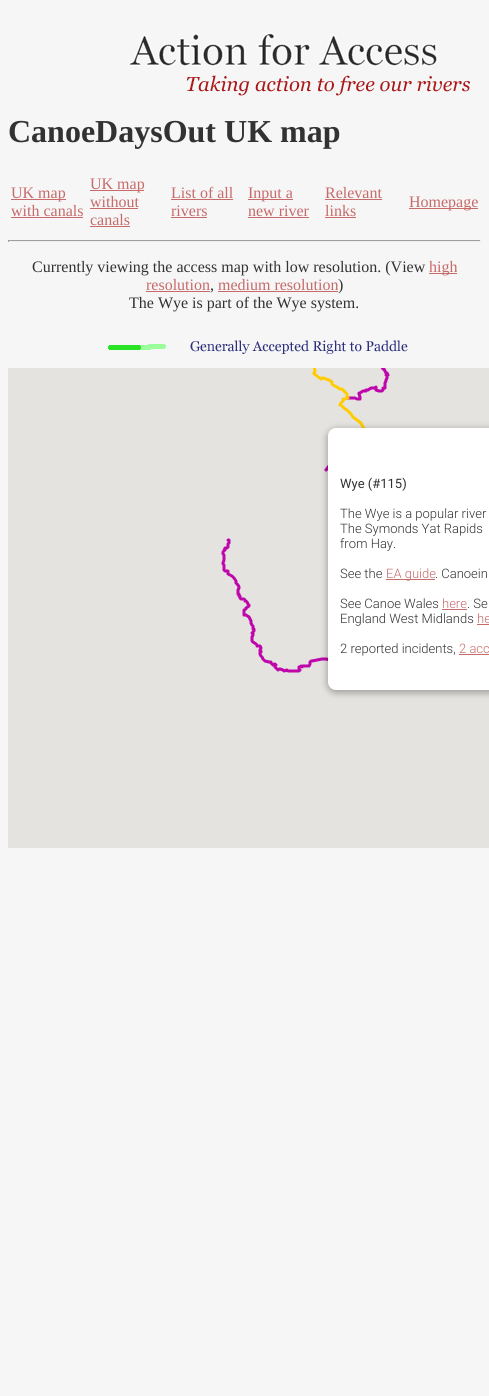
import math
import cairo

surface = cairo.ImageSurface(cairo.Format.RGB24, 489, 1396)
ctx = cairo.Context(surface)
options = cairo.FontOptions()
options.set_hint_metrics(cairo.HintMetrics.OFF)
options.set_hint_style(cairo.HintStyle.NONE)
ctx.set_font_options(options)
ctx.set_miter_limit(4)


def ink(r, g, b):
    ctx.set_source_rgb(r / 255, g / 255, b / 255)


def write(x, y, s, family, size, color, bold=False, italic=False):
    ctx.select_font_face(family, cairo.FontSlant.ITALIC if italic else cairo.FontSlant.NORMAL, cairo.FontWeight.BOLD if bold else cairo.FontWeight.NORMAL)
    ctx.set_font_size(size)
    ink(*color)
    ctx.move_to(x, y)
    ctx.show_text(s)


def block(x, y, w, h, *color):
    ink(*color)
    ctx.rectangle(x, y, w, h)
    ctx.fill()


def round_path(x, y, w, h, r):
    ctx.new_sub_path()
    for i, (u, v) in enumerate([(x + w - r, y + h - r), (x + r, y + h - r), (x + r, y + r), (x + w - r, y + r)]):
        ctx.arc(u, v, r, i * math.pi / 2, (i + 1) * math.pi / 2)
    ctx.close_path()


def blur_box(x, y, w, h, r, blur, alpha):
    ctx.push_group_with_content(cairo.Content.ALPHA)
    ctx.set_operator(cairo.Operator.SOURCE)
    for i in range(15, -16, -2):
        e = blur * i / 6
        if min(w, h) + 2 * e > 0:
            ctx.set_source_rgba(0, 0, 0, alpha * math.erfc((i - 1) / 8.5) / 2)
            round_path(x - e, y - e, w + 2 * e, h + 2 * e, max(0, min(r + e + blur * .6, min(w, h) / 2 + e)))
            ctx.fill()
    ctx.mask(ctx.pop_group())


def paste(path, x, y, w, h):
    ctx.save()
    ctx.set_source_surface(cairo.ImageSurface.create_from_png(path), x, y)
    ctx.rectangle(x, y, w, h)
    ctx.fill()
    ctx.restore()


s1 = dict(family="Liberation Serif", size=32, color=(50, 50, 50), bold=True)
s2 = dict(family="Liberation Serif", size=16, color=(198, 106, 106))
s3 = dict(family="Liberation Serif", size=16, color=(50, 50, 50))
s4 = dict(family="Roboto", size=13, color=(50, 50, 50))
s5 = dict(family="Roboto Light", size=13, color=(50, 50, 50))
s6 = dict(family="Roboto Light", size=13, color=(198, 106, 106))

ink(246, 246, 246)
ctx.paint()
paste("pic1.png", 130, 33, 340, 63)
write(8, 142, "CanoeDaysOut UK map", **s1)
block(11, 199, 55, 1, 198, 106, 106)
write(11, 198, "UK map", **s2)
write(11, 216, "with canals", **s2)
block(11, 217, 72, 1, 198, 106, 106)
block(90, 190, 54, 1, 198, 106, 106)
write(90, 189, "UK map", **s2)
write(90, 207, "without", **s2)
block(90, 208, 48, 1, 198, 106, 106)
write(90, 225, "canals", **s2)
block(90, 226, 40, 1, 198, 106, 106)
write(171, 198, "List of all", **s2)
block(171, 199, 62, 1, 198, 106, 106)
write(171, 216, "rivers", **s2)
block(171, 217, 36, 1, 198, 106, 106)
block(248, 199, 45, 1, 198, 106, 106)
write(248, 198, "Input a", **s2)
write(248, 216, "new river", **s2)
block(248, 217, 61, 1, 198, 106, 106)
write(325, 198, "Relevant", **s2)
block(325, 199, 57, 1, 198, 106, 106)
write(325, 216, "links", **s2)
block(325, 217, 31, 1, 198, 106, 106)
block(409, 208, 69, 1, 198, 106, 106)
write(409, 207, "Homepage", **s2)
block(8, 240, 473, 1, 159, 159, 159)
block(480, 240, 1, 2, 238, 238, 238)
block(8, 241, 473, 1, 238, 238, 238)
block(8, 240, 1, 2, 159, 159, 159)
write(32, 272, "Currently viewing the access map with low resolution. (View", **s3)
block(429, 273, 28, 1, 198, 106, 106)
write(429, 272, "high", **s2)
write(146, 290, "resolution", **s2)
block(146, 291, 64, 1, 198, 106, 106)
write(210, 290, ",", **s3)
write(218, 290, "medium resolution", **s2)
block(218, 291, 120, 1, 198, 106, 106)
write(338, 290, ")", **s3)
write(129, 308, "The Wye is part of the Wye system.", **s3)
paste("pic2.png", 108, 340, 300, 14)
block(8, 368, 481, 480, 229, 227, 223)
paste("pic3.png", 312, 368, 53, 104)
paste("pic4.png", 365, 368, 25, 60)
paste("pic5.png", 221, 538, 107, 135)
ink(0, 0, 0)
blur_box(327, 429, 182, 264, 9, 3.5, 0.3)
ink(255, 255, 255)
round_path(328, 428, 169, 262, 8)
ctx.fill()
write(340, 488, "Wye (#115)", **s4)
write(340, 518, "The Wye is a popular river", **s5)
write(340, 533, "The Symonds Yat Rapids", **s5)
write(340, 548, "from Hay.", **s5)
write(340, 578, "See the", **s5)
block(386, 579, 49, 1, 198, 106, 106)
write(386, 578, "EA guide", **s6)
write(435, 578, ". Canoein", **s5)
write(340, 608, "See Canoe Wales", **s5)
write(442, 608, "here", **s6)
block(442, 609, 25, 1, 198, 106, 106)
write(467, 608, ". Se", **s5)
write(340, 623, "England West Midlands", **s5)
write(477, 623, "he", **s6)
block(477, 624, 12, 1, 198, 106, 106)
write(340, 653, "2 reported incidents,", **s5)
write(459, 653, "2 acc", **s6)
block(459, 654, 30, 1, 198, 106, 106)
surface.write_to_png("screenshot.png")
